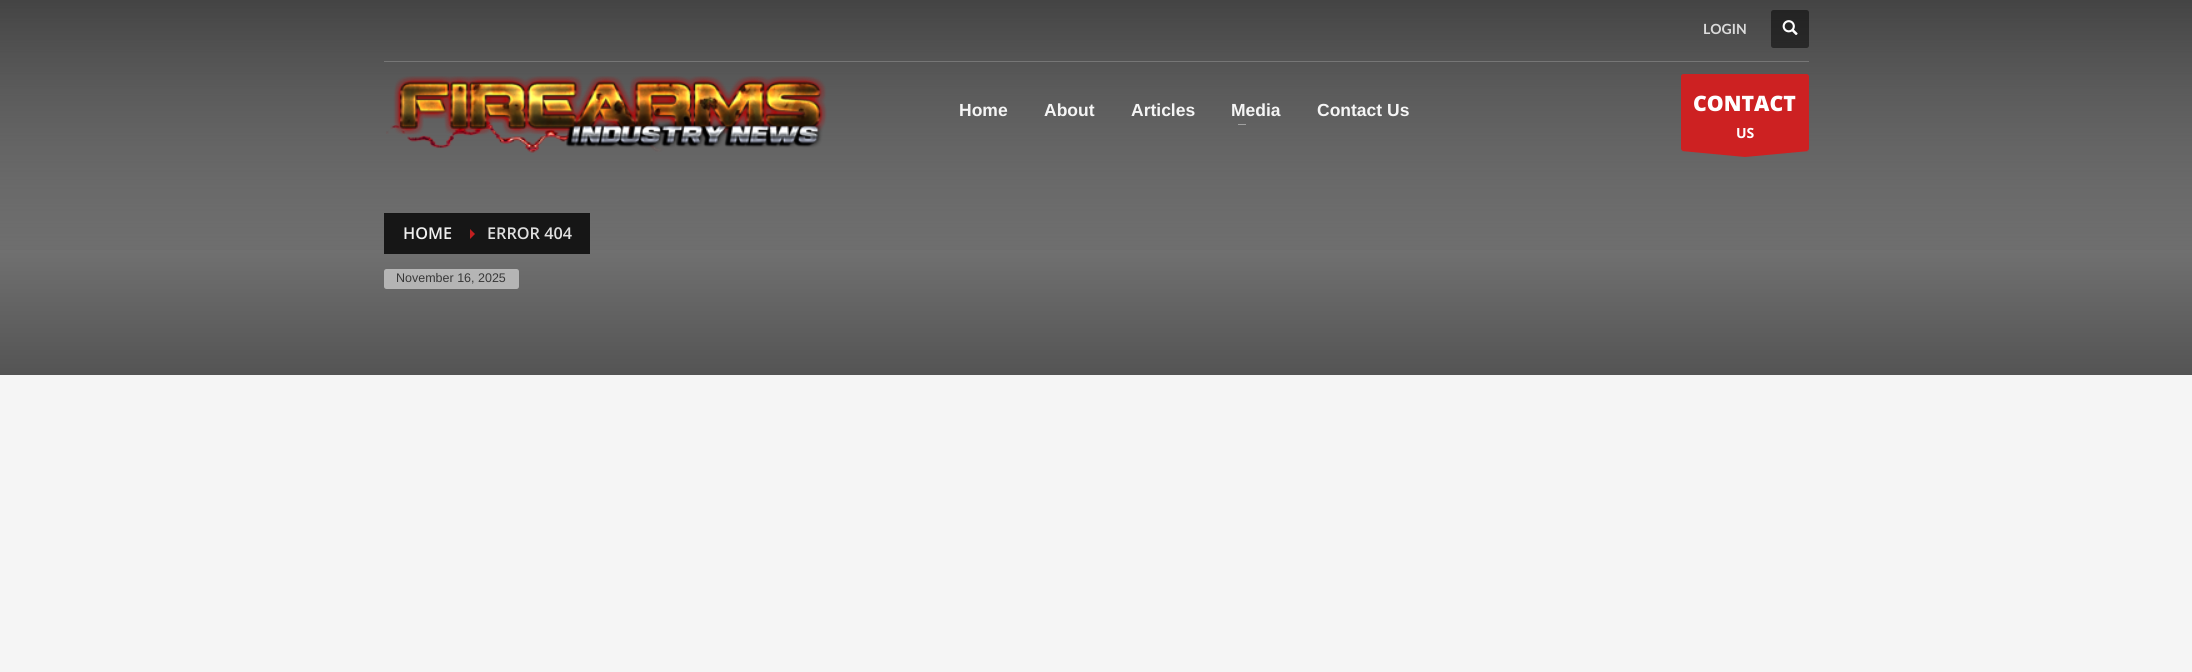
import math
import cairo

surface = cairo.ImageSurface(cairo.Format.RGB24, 2192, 672)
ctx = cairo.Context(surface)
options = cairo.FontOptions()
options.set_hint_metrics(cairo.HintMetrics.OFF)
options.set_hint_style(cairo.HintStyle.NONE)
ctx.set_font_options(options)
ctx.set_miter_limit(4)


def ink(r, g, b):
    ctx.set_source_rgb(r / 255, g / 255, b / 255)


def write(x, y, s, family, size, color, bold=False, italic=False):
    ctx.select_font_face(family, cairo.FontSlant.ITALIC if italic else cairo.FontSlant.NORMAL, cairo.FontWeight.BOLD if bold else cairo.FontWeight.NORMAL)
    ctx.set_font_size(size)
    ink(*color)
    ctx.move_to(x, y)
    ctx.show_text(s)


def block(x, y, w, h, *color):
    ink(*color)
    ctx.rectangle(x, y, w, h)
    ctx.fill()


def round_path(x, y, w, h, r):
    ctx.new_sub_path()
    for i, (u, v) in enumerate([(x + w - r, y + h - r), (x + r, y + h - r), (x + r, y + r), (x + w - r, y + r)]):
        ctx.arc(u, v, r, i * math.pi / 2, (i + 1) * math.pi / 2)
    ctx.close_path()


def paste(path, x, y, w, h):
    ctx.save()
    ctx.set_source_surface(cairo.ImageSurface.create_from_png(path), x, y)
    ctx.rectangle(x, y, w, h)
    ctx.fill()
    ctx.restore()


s1 = dict(family="Open Sans SemiBold", size=16.25, color=(255, 255, 255))
s2 = dict(family="Open Sans SemiBold", size=16.25, color=(238, 238, 238))
s3 = dict(family="Lato", size=14, color=(219, 219, 219), bold=True)
s4 = dict(family="Liberation Sans", size=17.5, color=(245, 245, 245), bold=True)
s5 = dict(family="Open Sans ExtraBold", size=21.25, color=(255, 255, 255))
s6 = dict(family="Open Sans", size=14, color=(255, 255, 255), bold=True)
s7 = dict(family="Liberation Sans", size=12.5, color=(56, 56, 56))

ink(245, 245, 245)
ctx.paint()
gradient = cairo.LinearGradient(1096, 0, 1096, 375)
gradient.add_color_stop_rgba(0, 0.663, 0.663, 0.663, 1)
gradient.add_color_stop_rgba(1, 0.329, 0.329, 0.329, 1)
ctx.set_source(gradient)
ctx.rectangle(0, 0, 2192, 375)
ctx.fill()
gradient = cairo.LinearGradient(1096, 0, 1096, 375)
gradient.add_color_stop_rgba(0, 0.133, 0.133, 0.133, 1)
gradient.add_color_stop_rgba(1, 0.067, 0.067, 0.067, 1)
ctx.set_source(gradient)
ctx.rectangle(458, 213, 132, 41)
ctx.fill()
ctx.rectangle(384, 213, 74, 41)
ctx.fill()
write(403, 239, "HOME", **s1)
ink(205, 33, 34)
ctx.new_path()
ctx.move_to(470, 239)
ctx.line_to(470, 229)
ctx.line_to(475, 234)
ctx.close_path()
ctx.fill()
write(487, 239, "ERROR 404", **s2)
gradient = cairo.LinearGradient(1096, 0, 1096, 259)
gradient.add_color_stop_rgba(0, 0, 0, 0, 0.6)
gradient.add_color_stop_rgba(1, 0, 0, 0, 0)
ctx.set_source(gradient)
ctx.rectangle(0, 0, 2192, 250)
ctx.fill()
write(1703, 34, "LOGIN", **s3)
ctx.set_source_rgba(0, 0, 0, 0.5)
round_path(1771, 10, 38, 38, 2.5)
ctx.fill()
paste("pic1.png", 1782, 20, 16, 15)
block(384, 61, 1425, 1, 118, 118, 118)
paste("pic2.png", 386, 76, 441, 77)
write(959, 116, "Home", **s4)
write(1044, 116, "About", **s4)
write(1131, 116, "Articles", **s4)
write(1231, 116, "Media", **s4)
block(1238, 124, 8, 1, 160, 160, 160)
write(1317, 116, "Contact Us", **s4)
ink(205, 33, 34)
round_path(1681, 74, 128, 77, 2.5)
ctx.fill()
write(1693, 111, "CONTACT", **s5)
write(1736, 138, "US", **s6)
ink(205, 33, 34)
ctx.set_fill_rule(cairo.FillRule.EVEN_ODD)
ctx.new_path()
ctx.move_to(1809, 151)
ctx.line_to(1745, 157)
ctx.line_to(1681, 151)
ctx.close_path()
ctx.fill()
ctx.set_source_rgba(1, 1, 1, 0.5)
round_path(384, 269, 135, 20, 2.5)
ctx.fill()
write(396, 282, "November 16, 2025", **s7)
surface.write_to_png("screenshot.png")
